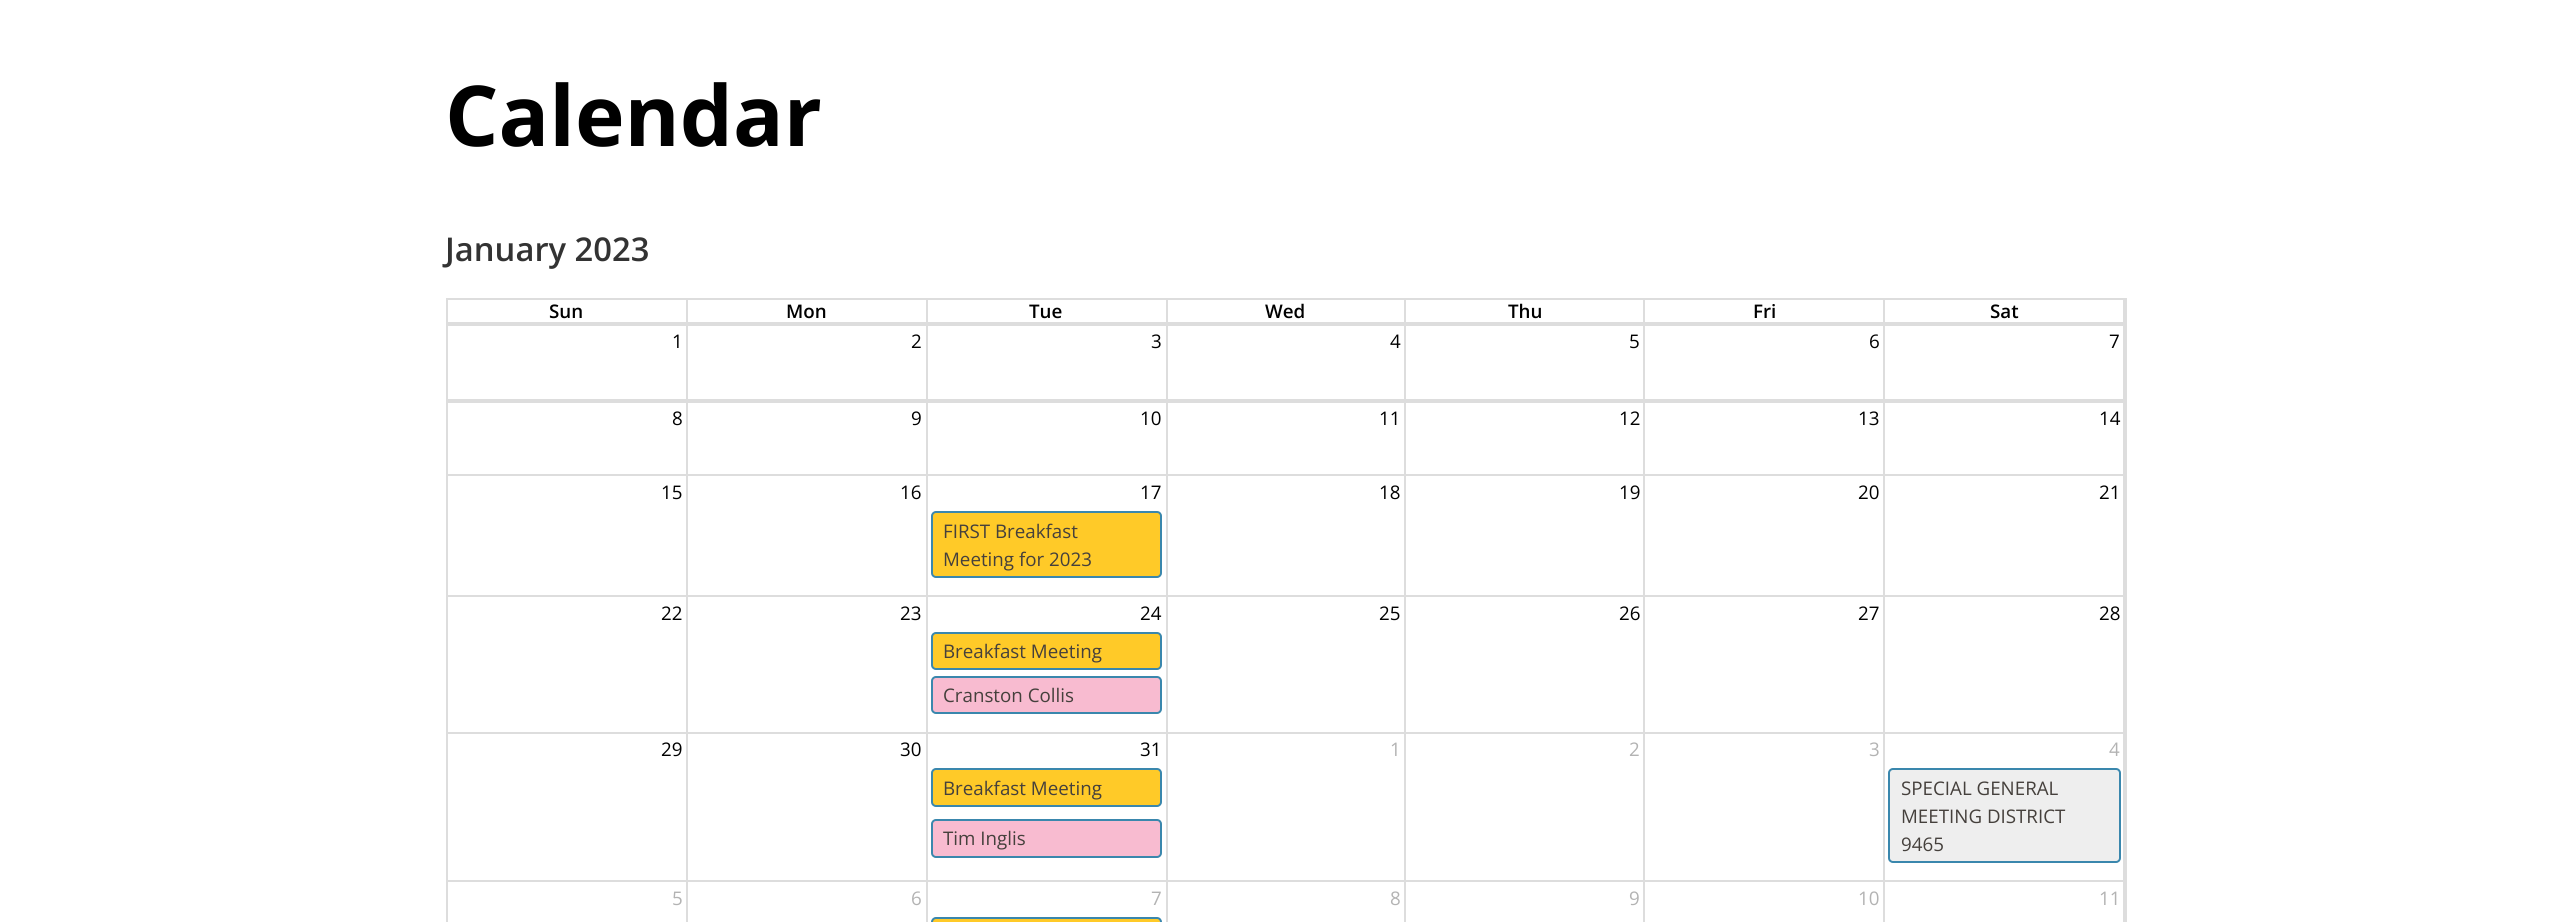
import math
import cairo

surface = cairo.ImageSurface(cairo.Format.RGB24, 2570, 922)
ctx = cairo.Context(surface)
options = cairo.FontOptions()
options.set_hint_metrics(cairo.HintMetrics.OFF)
options.set_hint_style(cairo.HintStyle.NONE)
ctx.set_font_options(options)
ctx.set_miter_limit(4)


def ink(r, g, b):
    ctx.set_source_rgb(r / 255, g / 255, b / 255)


def write(x, y, s, family, size, color, bold=False, italic=False):
    ctx.select_font_face(family, cairo.FontSlant.ITALIC if italic else cairo.FontSlant.NORMAL, cairo.FontWeight.BOLD if bold else cairo.FontWeight.NORMAL)
    ctx.set_font_size(size)
    ink(*color)
    ctx.move_to(x, y)
    ctx.show_text(s)


def block(x, y, w, h, *color):
    ink(*color)
    ctx.rectangle(x, y, w, h)
    ctx.fill()


def round_path(x, y, w, h, r):
    ctx.new_sub_path()
    for i, (u, v) in enumerate([(x + w - r, y + h - r), (x + r, y + h - r), (x + r, y + r), (x + w - r, y + r)]):
        ctx.arc(u, v, r, i * math.pi / 2, (i + 1) * math.pi / 2)
    ctx.close_path()


s1 = dict(family="Open Sans", size=84, color=(0, 0, 0), bold=True)
s2 = dict(family="Open Sans SemiBold", size=32.75, color=(51, 51, 51))
s3 = dict(family="Open Sans SemiBold", size=18.75, color=(0, 0, 0))
s4 = dict(family="Open Sans", size=18.75, color=(0, 0, 0))
s5 = dict(family="Open Sans", size=18.75, color=(69, 64, 60))
s6 = dict(family="Open Sans", size=18.75, color=(179, 179, 179))

ink(255, 255, 255)
ctx.paint()
write(445, 146, "Calendar", **s1)
write(445, 261, "January 2023", **s2)
block(446, 298, 1680, 2, 221, 221, 221)
block(446, 324, 1680, 2, 221, 221, 221)
block(2125, 324, 2, 598, 221, 221, 221)
block(2125, 298, 2, 28, 221, 221, 221)
block(446, 324, 2, 598, 221, 221, 221)
block(446, 298, 2, 28, 221, 221, 221)
block(2123, 298, 2, 26, 221, 221, 221)
block(1883, 322, 242, 2, 221, 221, 221)
block(1883, 298, 2, 26, 221, 221, 221)
block(1643, 322, 242, 2, 221, 221, 221)
block(1643, 298, 2, 26, 221, 221, 221)
block(1404, 322, 241, 2, 221, 221, 221)
block(1404, 298, 2, 26, 221, 221, 221)
block(1166, 322, 239, 2, 221, 221, 221)
block(1166, 298, 2, 26, 221, 221, 221)
block(926, 322, 241, 2, 221, 221, 221)
block(926, 298, 2, 26, 221, 221, 221)
block(686, 322, 242, 2, 221, 221, 221)
block(686, 298, 2, 26, 221, 221, 221)
block(446, 322, 242, 2, 221, 221, 221)
write(549, 318, "Sun", **s3)
write(786, 318, "Mon", **s3)
write(1029, 318, "Tue", **s3)
write(1265, 318, "Wed", **s3)
write(1508, 318, "Thu", **s3)
write(1753, 318, "Fri", **s3)
write(1990, 318, "Sat", **s3)
block(2123, 326, 2, 75, 221, 221, 221)
block(1883, 399, 242, 4, 221, 221, 221)
block(1883, 326, 2, 75, 221, 221, 221)
block(1643, 399, 242, 2, 221, 221, 221)
block(1643, 326, 2, 75, 221, 221, 221)
block(1404, 399, 241, 2, 221, 221, 221)
block(1404, 326, 2, 75, 221, 221, 221)
block(1166, 399, 239, 2, 221, 221, 221)
block(1166, 326, 2, 75, 221, 221, 221)
block(926, 399, 241, 2, 221, 221, 221)
block(926, 326, 2, 75, 221, 221, 221)
block(686, 399, 242, 2, 221, 221, 221)
block(686, 326, 2, 75, 221, 221, 221)
block(448, 399, 240, 2, 221, 221, 221)
write(672, 348, "1", **s4)
write(911, 348, "2", **s4)
write(1151, 348, "3", **s4)
write(1390, 348, "4", **s4)
write(1629, 348, "5", **s4)
write(1869, 348, "6", **s4)
write(2109, 348, "7", **s4)
block(2123, 401, 2, 75, 221, 221, 221)
block(1883, 474, 242, 2, 221, 221, 221)
block(1883, 401, 2, 75, 221, 221, 221)
block(1643, 401, 242, 2, 221, 221, 221)
block(1643, 474, 242, 2, 221, 221, 221)
block(1643, 401, 2, 75, 221, 221, 221)
block(1404, 401, 241, 2, 221, 221, 221)
block(1404, 474, 241, 2, 221, 221, 221)
block(1404, 401, 2, 75, 221, 221, 221)
block(1166, 401, 239, 2, 221, 221, 221)
block(1166, 474, 239, 2, 221, 221, 221)
block(1166, 401, 2, 75, 221, 221, 221)
block(926, 401, 241, 2, 221, 221, 221)
block(926, 474, 241, 2, 221, 221, 221)
block(926, 401, 2, 75, 221, 221, 221)
block(686, 401, 242, 2, 221, 221, 221)
block(686, 474, 242, 2, 221, 221, 221)
block(686, 401, 2, 75, 221, 221, 221)
block(448, 401, 240, 2, 221, 221, 221)
block(448, 474, 240, 2, 221, 221, 221)
write(672, 425, "8", **s4)
write(911, 425, "9", **s4)
write(1140, 425, "10", **s4)
write(1379, 425, "11", **s4)
write(1619, 425, "12", **s4)
write(1858, 425, "13", **s4)
write(2099, 425, "14", **s4)
block(2123, 474, 2, 123, 221, 221, 221)
block(1883, 595, 242, 2, 221, 221, 221)
block(1883, 474, 2, 123, 221, 221, 221)
block(1643, 595, 242, 2, 221, 221, 221)
block(1643, 474, 2, 123, 221, 221, 221)
block(1404, 595, 241, 2, 221, 221, 221)
block(1404, 474, 2, 123, 221, 221, 221)
block(1166, 595, 239, 2, 221, 221, 221)
block(1166, 474, 2, 123, 221, 221, 221)
block(926, 595, 241, 2, 221, 221, 221)
block(926, 474, 2, 123, 221, 221, 221)
block(686, 595, 242, 2, 221, 221, 221)
block(686, 474, 2, 123, 221, 221, 221)
block(448, 595, 240, 2, 221, 221, 221)
write(661, 499, "15", **s4)
write(900, 499, "16", **s4)
write(1140, 499, "17", **s4)
write(1379, 499, "18", **s4)
write(1619, 499, "19", **s4)
write(1858, 499, "20", **s4)
write(2099, 499, "21", **s4)
ink(255, 202, 40)
round_path(932, 512, 229, 65, 4)
ctx.fill_preserve()
ink(58, 135, 173)
ctx.stroke()
write(943, 538, "FIRST Breakfast", **s5)
write(943, 566, "Meeting for 2023", **s5)
block(2123, 595, 2, 138, 221, 221, 221)
block(1883, 732, 242, 2, 221, 221, 221)
block(1883, 595, 2, 138, 221, 221, 221)
block(1643, 732, 242, 2, 221, 221, 221)
block(1643, 595, 2, 138, 221, 221, 221)
block(1404, 732, 241, 2, 221, 221, 221)
block(1404, 595, 2, 138, 221, 221, 221)
block(1166, 732, 239, 2, 221, 221, 221)
block(1166, 595, 2, 138, 221, 221, 221)
block(926, 732, 241, 2, 221, 221, 221)
block(926, 595, 2, 138, 221, 221, 221)
block(686, 732, 242, 2, 221, 221, 221)
block(686, 595, 2, 138, 221, 221, 221)
block(448, 732, 240, 2, 221, 221, 221)
write(661, 620, "22", **s4)
write(900, 620, "23", **s4)
write(1140, 620, "24", **s4)
write(1379, 620, "25", **s4)
write(1619, 620, "26", **s4)
write(1858, 620, "27", **s4)
write(2099, 620, "28", **s4)
ink(255, 202, 40)
round_path(932, 633, 229, 36, 4)
ctx.fill_preserve()
ink(58, 135, 173)
ctx.stroke()
write(943, 658, "Breakfast Meeting", **s5)
ink(248, 187, 208)
round_path(932, 677, 229, 36, 4)
ctx.fill_preserve()
ink(58, 135, 173)
ctx.stroke()
write(943, 702, "Cranston Collis", **s5)
block(2123, 732, 2, 150, 221, 221, 221)
block(1883, 880, 242, 2, 221, 221, 221)
block(1883, 732, 2, 150, 221, 221, 221)
block(1643, 880, 242, 2, 221, 221, 221)
block(1643, 732, 2, 150, 221, 221, 221)
block(1404, 880, 241, 2, 221, 221, 221)
block(1404, 732, 2, 150, 221, 221, 221)
block(1166, 880, 239, 2, 221, 221, 221)
block(1166, 732, 2, 150, 221, 221, 221)
block(926, 880, 241, 2, 221, 221, 221)
block(926, 732, 2, 150, 221, 221, 221)
block(686, 880, 242, 2, 221, 221, 221)
block(686, 732, 2, 150, 221, 221, 221)
block(448, 880, 240, 2, 221, 221, 221)
write(661, 756, "29", **s4)
write(900, 756, "30", **s4)
write(1140, 756, "31", **s4)
write(1390, 756, "1", **s6)
write(1629, 756, "2", **s6)
write(1869, 756, "3", **s6)
write(2109, 756, "4", **s6)
ink(255, 202, 40)
round_path(932, 769, 229, 37, 4)
ctx.fill_preserve()
ink(58, 135, 173)
ctx.stroke()
write(943, 795, "Breakfast Meeting", **s5)
ink(238, 238, 238)
round_path(1889, 769, 231, 93, 4)
ctx.fill_preserve()
ink(58, 135, 173)
ctx.stroke()
write(1901, 795, "SPECIAL GENERAL", **s5)
write(1901, 823, "MEETING DISTRICT", **s5)
write(1901, 851, "9465", **s5)
ink(248, 187, 208)
round_path(932, 820, 229, 37, 4)
ctx.fill_preserve()
ink(58, 135, 173)
ctx.stroke()
write(943, 845, "Tim Inglis", **s5)
block(686, 880, 2, 42, 221, 221, 221)
block(926, 880, 2, 42, 221, 221, 221)
block(1166, 880, 2, 42, 221, 221, 221)
block(1404, 880, 2, 42, 221, 221, 221)
block(1643, 880, 2, 42, 221, 221, 221)
block(2123, 880, 2, 42, 221, 221, 221)
block(1883, 880, 2, 42, 221, 221, 221)
write(672, 905, "5", **s6)
write(911, 905, "6", **s6)
write(1151, 905, "7", **s6)
write(1390, 905, "8", **s6)
write(1629, 905, "9", **s6)
write(1858, 905, "10", **s6)
write(2099, 905, "11", **s6)
ink(255, 202, 40)
round_path(932, 918, 229, 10, 4)
ctx.fill_preserve()
ink(58, 135, 173)
ctx.stroke()
surface.write_to_png("screenshot.png")
